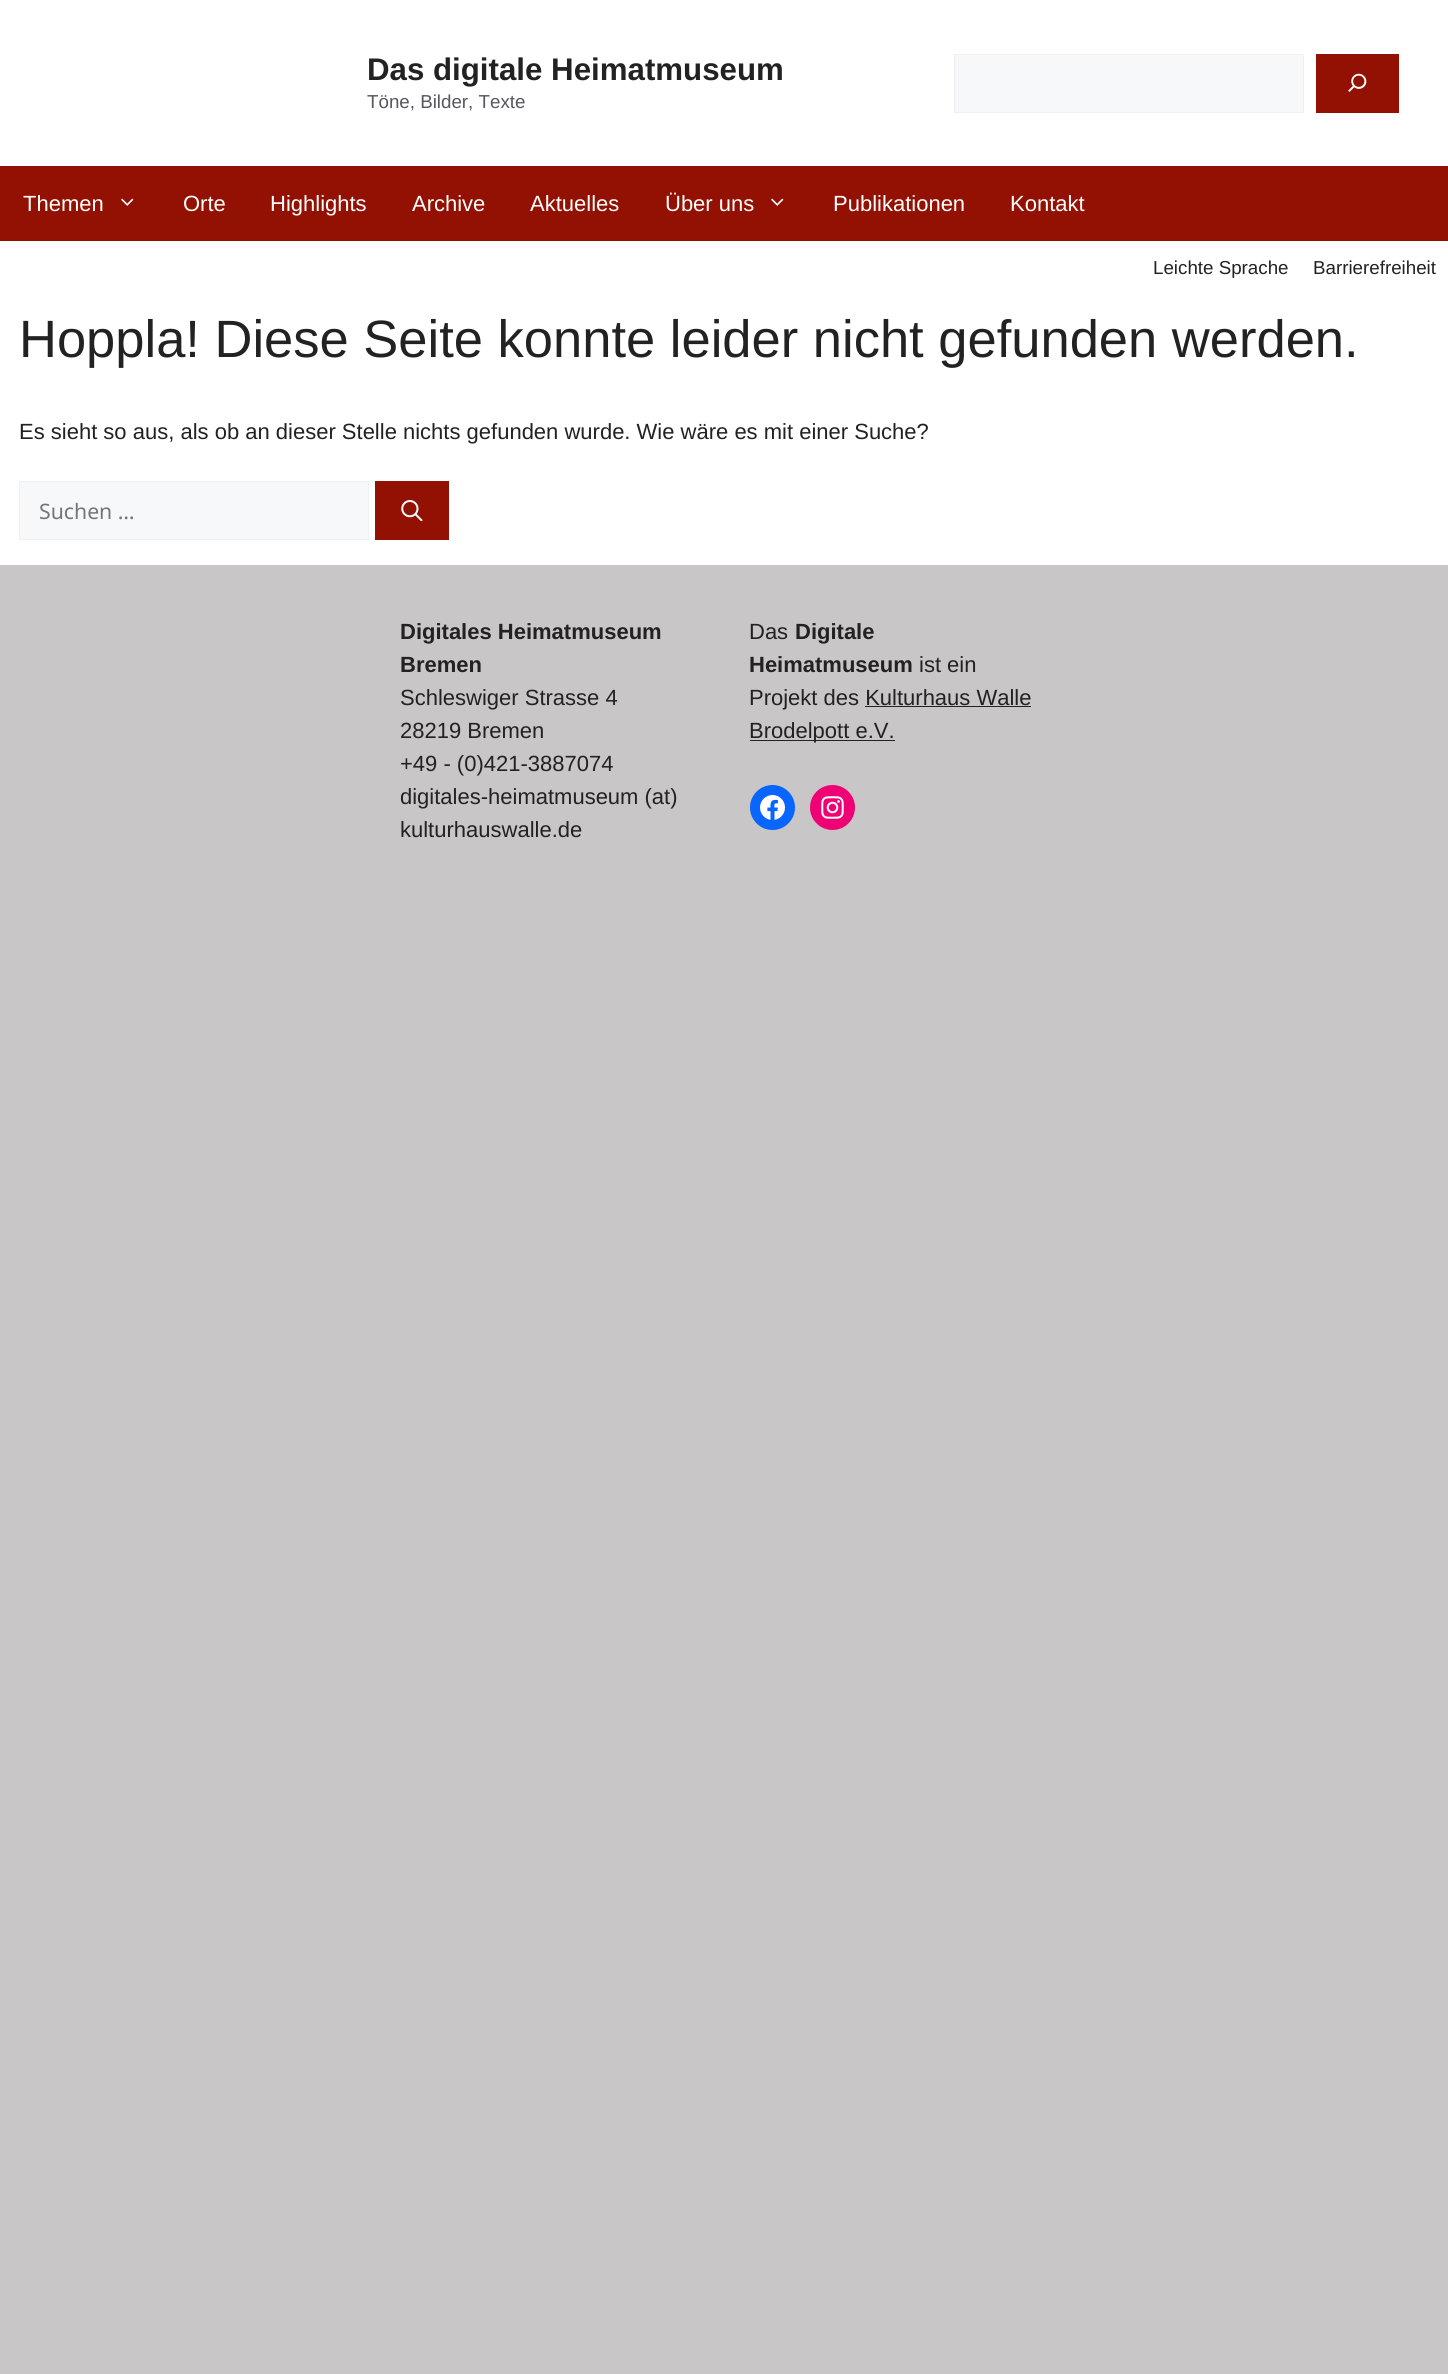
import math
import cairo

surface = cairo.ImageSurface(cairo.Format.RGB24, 1448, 2374)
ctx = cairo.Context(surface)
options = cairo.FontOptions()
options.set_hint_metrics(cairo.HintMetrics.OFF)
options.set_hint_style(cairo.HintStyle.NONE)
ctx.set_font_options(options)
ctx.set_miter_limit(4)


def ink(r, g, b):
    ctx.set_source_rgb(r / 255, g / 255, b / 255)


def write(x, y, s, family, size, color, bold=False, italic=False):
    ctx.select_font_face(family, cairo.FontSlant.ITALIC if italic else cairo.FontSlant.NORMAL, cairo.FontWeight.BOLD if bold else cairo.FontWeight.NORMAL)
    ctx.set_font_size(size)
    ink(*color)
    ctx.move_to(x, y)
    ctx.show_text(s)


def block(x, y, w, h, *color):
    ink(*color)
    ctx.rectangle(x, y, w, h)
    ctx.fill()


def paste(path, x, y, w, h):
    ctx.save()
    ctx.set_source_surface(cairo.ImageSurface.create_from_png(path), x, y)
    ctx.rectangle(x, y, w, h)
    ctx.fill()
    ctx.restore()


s1 = dict(family="Liberation Sans", size=31.25, color=(34, 34, 34), bold=True)
s2 = dict(family="Liberation Sans", size=18.75, color=(87, 87, 96))
s3 = dict(family="Liberation Sans", size=22, color=(255, 255, 255))
s4 = dict(family="Liberation Sans", size=18.75, color=(34, 34, 34))
s5 = dict(family="Liberation Sans", size=52.5, color=(34, 34, 34))
s6 = dict(family="Liberation Sans", size=22, color=(34, 34, 34))
s7 = dict(family="Noto Sans", size=21.25, color=(117, 117, 117))
s8 = dict(family="Liberation Sans", size=22, color=(34, 34, 34), bold=True)

ink(255, 255, 255)
ctx.paint()
write(367, 80, "Das digitale Heimatmuseum", **s1)
write(367, 108, "Töne, Bilder, Texte", **s2)
ink(247, 248, 249)
ctx.rectangle(954.5, 54.5, 349, 58)
ctx.fill_preserve()
ink(240, 240, 240)
ctx.set_line_width(1)
ctx.stroke()
block(1316, 54, 83, 59, 147, 17, 2)
paste("pic1.png", 1348, 73, 19, 19)
block(0, 166, 1448, 75, 147, 17, 2)
write(23, 211, "Themen", **s3)
paste("pic2.png", 121, 198, 13, 8)
write(183, 211, "Orte", **s3)
write(270, 211, "Highlights", **s3)
write(412, 211, "Archive", **s3)
write(530, 211, "Aktuelles", **s3)
write(665, 211, "Über uns", **s3)
paste("pic2.png", 771, 198, 13, 8)
write(833, 211, "Publikationen", **s3)
write(1010, 211, "Kontakt", **s3)
write(1153, 274, "Leichte Sprache", **s4)
write(1313, 274, "Barrierefreiheit", **s4)
write(19, 357, "Hoppla! Diese Seite konnte leider nicht gefunden werden.", **s5)
write(19, 439, "Es sieht so aus, als ob an dieser Stelle nichts gefunden wurde. Wie wäre es mit einer Suche?", **s6)
ink(247, 248, 249)
ctx.rectangle(19.5, 481.5, 349, 58)
ctx.fill_preserve()
ink(240, 240, 240)
ctx.stroke()
write(39, 519, "Suchen …", **s7)
block(375, 481, 74, 59, 147, 17, 2)
paste("pic3.png", 401, 500, 22, 21)
block(0, 565, 1448, 1809, 200, 198, 198)
write(400, 639, "Digitales Heimatmuseum", **s8)
write(400, 672, "Bremen", **s8)
write(400, 705, "Schleswiger Strasse 4", **s6)
write(400, 738, "28219 Bremen", **s6)
write(400, 771, "+49 - (0)421-3887074", **s6)
write(400, 804, "digitales-heimatmuseum (at)", **s6)
write(400, 837, "kulturhauswalle.de", **s6)
write(749, 639, "Das", **s6)
write(795, 639, "Digitale", **s8)
write(749, 672, "Heimatmuseum", **s8)
write(919, 672, "ist ein", **s6)
write(749, 705, "Projekt des Kulturhaus Walle", **s6)
block(750, 740, 145, 1, 34, 34, 34)
write(749, 738, "Brodelpott e.V.", **s6)
block(865, 706, 166, 1, 34, 34, 34)
ink(8, 102, 255)
ctx.new_path()
ctx.arc(772.5, 807.5, 22.5, 0, 2 * math.pi)
ctx.fill()
paste("pic4.png", 760, 795, 25, 25)
ink(240, 0, 117)
ctx.arc(832.5, 807.5, 22.5, 0, 2 * math.pi)
ctx.fill()
paste("pic5.png", 821, 796, 23, 23)
surface.write_to_png("screenshot.png")
